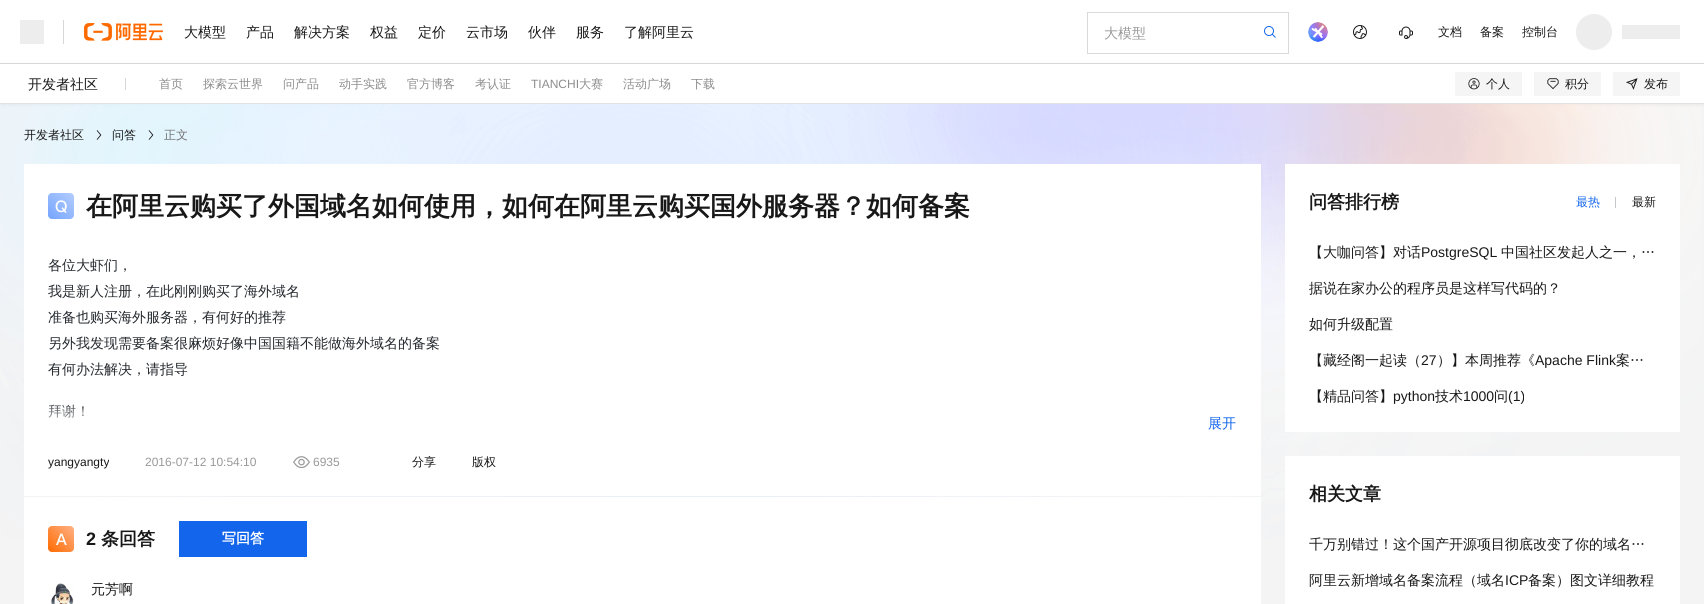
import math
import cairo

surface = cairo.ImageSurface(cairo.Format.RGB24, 1704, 604)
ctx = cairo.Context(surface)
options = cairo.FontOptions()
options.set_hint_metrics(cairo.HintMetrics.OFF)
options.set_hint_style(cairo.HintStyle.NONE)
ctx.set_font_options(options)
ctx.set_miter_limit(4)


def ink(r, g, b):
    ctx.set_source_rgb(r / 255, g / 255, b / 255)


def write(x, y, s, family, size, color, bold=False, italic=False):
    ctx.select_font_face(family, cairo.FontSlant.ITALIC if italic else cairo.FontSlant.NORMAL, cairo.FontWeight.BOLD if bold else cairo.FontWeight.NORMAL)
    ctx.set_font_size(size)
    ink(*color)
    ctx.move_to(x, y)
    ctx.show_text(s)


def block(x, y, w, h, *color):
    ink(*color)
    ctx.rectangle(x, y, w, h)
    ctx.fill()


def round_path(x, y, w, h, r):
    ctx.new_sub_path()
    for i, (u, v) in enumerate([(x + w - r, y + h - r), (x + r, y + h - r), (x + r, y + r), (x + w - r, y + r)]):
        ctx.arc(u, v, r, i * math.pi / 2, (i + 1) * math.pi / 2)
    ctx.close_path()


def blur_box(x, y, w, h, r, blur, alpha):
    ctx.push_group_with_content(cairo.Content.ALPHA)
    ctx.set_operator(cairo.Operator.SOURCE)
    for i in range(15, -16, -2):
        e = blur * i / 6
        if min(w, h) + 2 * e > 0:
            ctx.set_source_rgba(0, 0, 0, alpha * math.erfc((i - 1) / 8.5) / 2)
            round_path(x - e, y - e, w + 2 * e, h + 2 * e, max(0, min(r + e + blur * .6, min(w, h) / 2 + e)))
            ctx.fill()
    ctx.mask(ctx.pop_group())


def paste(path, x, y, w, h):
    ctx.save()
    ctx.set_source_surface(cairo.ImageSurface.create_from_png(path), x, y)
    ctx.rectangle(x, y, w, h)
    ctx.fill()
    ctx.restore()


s1 = dict(family="WenQuanYi Zen Hei Medium", size=14, color=(24, 24, 24))
s2 = dict(family="WenQuanYi Zen Hei Medium", size=14, color=(153, 153, 153))
s3 = dict(family="WenQuanYi Zen Hei Medium", size=12, color=(24, 24, 24))
s4 = dict(family="WenQuanYi Zen Hei Medium", size=12, color=(140, 140, 140))
s5 = dict(family="Liberation Sans", size=12, color=(140, 140, 140))
s6 = dict(family="WenQuanYi Zen Hei Medium", size=12, color=(113, 113, 113))
s7 = dict(family="WenQuanYi Zen Hei", size=26, color=(24, 24, 24), bold=True)
s8 = dict(family="WenQuanYi Zen Hei Medium", size=14, color=(36, 41, 46))
s9 = dict(family="WenQuanYi Zen Hei Medium", size=14, color=(19, 102, 236))
s10 = dict(family="Liberation Sans", size=12, color=(24, 24, 24))
s11 = dict(family="Liberation Sans", size=12, color=(153, 153, 153))
s12 = dict(family="Liberation Sans", size=18, color=(24, 24, 24), bold=True)
s13 = dict(family="WenQuanYi Zen Hei", size=18, color=(24, 24, 24), bold=True)
s14 = dict(family="WenQuanYi Zen Hei", size=14, color=(255, 255, 255), bold=True)
s15 = dict(family="WenQuanYi Zen Hei Medium", size=12, color=(19, 102, 236))
s16 = dict(family="Liberation Sans", size=14, color=(24, 24, 24))

ink(244, 244, 244)
ctx.paint()
ink(0, 0, 0)
blur_box(2, 68, 1700, 36, 0, 2, 0.15)
block(0, 0, 1704, 63, 255, 255, 255)
block(0, 63, 1704, 1, 215, 216, 217)
block(20, 20, 24, 24, 237, 237, 237)
block(63, 20, 1, 24, 216, 216, 216)
paste("pic1.png", 84, 23, 79, 18)
write(184, 37, "大模型", **s1)
write(246, 37, "产品", **s1)
write(294, 37, "解决方案", **s1)
write(370, 37, "权益", **s1)
write(418, 37, "定价", **s1)
write(466, 37, "云市场", **s1)
write(528, 37, "伙伴", **s1)
write(576, 37, "服务", **s1)
write(624, 37, "了解阿里云", **s1)
ctx.rectangle(1087.5, 12.5, 201, 41)
ink(217, 217, 217)
ctx.set_line_width(1)
ctx.stroke()
write(1104, 38, "大模型", **s2)
paste("pic2.png", 1264, 26, 12, 12)
paste("pic3.png", 1308, 22, 20, 20)
paste("pic4.png", 1311, 25, 14, 14)
paste("pic5.png", 1353, 25, 14, 14)
paste("pic6.png", 1399, 26, 14, 13)
write(1438, 36, "文档", **s3)
write(1480, 36, "备案", **s3)
write(1522, 36, "控制台", **s3)
ink(237, 237, 237)
ctx.new_path()
ctx.arc(1594, 32, 18, 0, 2 * math.pi)
ctx.fill()
block(1622, 25, 58, 14, 237, 237, 237)
block(0, 64, 1704, 39, 255, 255, 255)
block(0, 103, 1704, 1, 226, 226, 226)
write(28, 89, "开发者社区", **s1)
block(125, 78, 1, 12, 215, 216, 217)
write(159, 88, "首页", **s4)
write(203, 88, "探索云世界", **s4)
write(283, 88, "问产品", **s4)
write(339, 88, "动手实践", **s4)
write(407, 88, "官方博客", **s4)
write(475, 88, "考认证", **s4)
write(531, 88, "TIANCHI", **s5)
write(579, 88, "大赛", **s4)
write(623, 88, "活动广场", **s4)
write(691, 88, "下载", **s4)
block(1455, 72, 67, 24, 245, 245, 246)
paste("pic7.png", 1468, 78, 12, 12)
write(1486, 88, "个人", **s3)
block(1534, 72, 67, 24, 245, 245, 246)
paste("pic8.png", 1547, 78, 12, 12)
write(1565, 88, "积分", **s3)
block(1613, 72, 67, 24, 245, 245, 246)
paste("pic9.png", 1626, 78, 12, 12)
write(1644, 88, "发布", **s3)
paste("pic10.png", 0, 104, 1702, 435)
write(24, 139, "开发者社区", **s3)
paste("pic11.png", 96, 130, 6, 10)
write(112, 139, "问答", **s3)
paste("pic12.png", 148, 130, 6, 10)
write(164, 139, "正文", **s6)
block(24, 164, 1237, 332, 255, 255, 255)
paste("pic13.png", 48, 193, 26, 26)
write(86, 215, "在阿里云购买了外国域名如何使用，如何在阿里云购买国外服务器？如何备案", **s7)
write(48, 270, "各位大虾们，", **s8)
write(48, 296, "我是新人注册，在此刚刚购买了海外域名", **s8)
write(48, 322, "准备也购买海外服务器，有何好的推荐", **s8)
write(48, 348, "另外我发现需要备案很麻烦好像中国国籍不能做海外域名的备案", **s8)
write(48, 374, "有何办法解决，请指导", **s8)
write(48, 416, "拜谢！", **s8)
gradient = cairo.LinearGradient(628, 400, 628, 436)
gradient.add_color_stop_rgba(0, 1, 1, 1, 0)
gradient.add_color_stop_rgba(1, 1, 1, 1, 1)
ctx.set_source(gradient)
ctx.rectangle(48, 404, 36, 14)
ctx.fill()
write(1208, 428, "展开", **s9)
write(48, 466, "yangyangty", **s10)
write(145, 466, "2016-07-12 10:54:10", **s11)
paste("pic14.png", 293, 456, 17, 12)
write(313, 466, "6935", **s11)
write(412, 466, "分享", **s3)
write(472, 466, "版权", **s3)
block(24, 497, 1237, 107, 255, 255, 255)
paste("pic15.png", 48, 526, 26, 26)
write(86, 545, "2", **s12)
write(101, 545, "条回答", **s13)
block(179, 521, 128, 36, 19, 102, 236)
write(222, 543, "写回答", **s14)
paste("pic16.png", 50, 583, 24, 21)
write(91, 594, "元芳啊", **s1)
block(1285, 164, 395, 268, 255, 255, 255)
write(1309, 208, "问答排行榜", **s13)
write(1576, 206, "最热", **s15)
block(1615, 197, 1, 11, 198, 201, 204)
write(1632, 206, "最新", **s3)
write(1309, 257, "【大咖问答】对话", **s1)
write(1421, 257, "PostgreSQL", **s16)
write(1501, 257, "中国社区发起人之一，…", **s1)
write(1309, 293, "据说在家办公的程序员是这样写代码的？", **s1)
write(1309, 329, "如何升级配置", **s1)
write(1309, 365, "【藏经阁一起读（", **s1)
write(1421, 365, "27", **s16)
write(1437, 365, "）】本周推荐《", **s1)
write(1535, 365, "Apache Flink", **s16)
write(1616, 365, "案…", **s1)
write(1309, 401, "【精品问答】", **s1)
write(1393, 401, "python", **s16)
write(1435, 401, "技术", **s1)
write(1463, 401, "1000", **s16)
write(1494, 401, "问", **s1)
write(1508, 401, "(1)", **s16)
block(1285, 456, 395, 148, 255, 255, 255)
write(1309, 500, "相关文章", **s13)
write(1309, 549, "千万别错过！这个国产开源项目彻底改变了你的域名…", **s1)
write(1309, 585, "阿里云新增域名备案流程（域名", **s1)
write(1505, 585, "ICP", **s16)
write(1528, 585, "备案）图文详细教程", **s1)
surface.write_to_png("screenshot.png")
